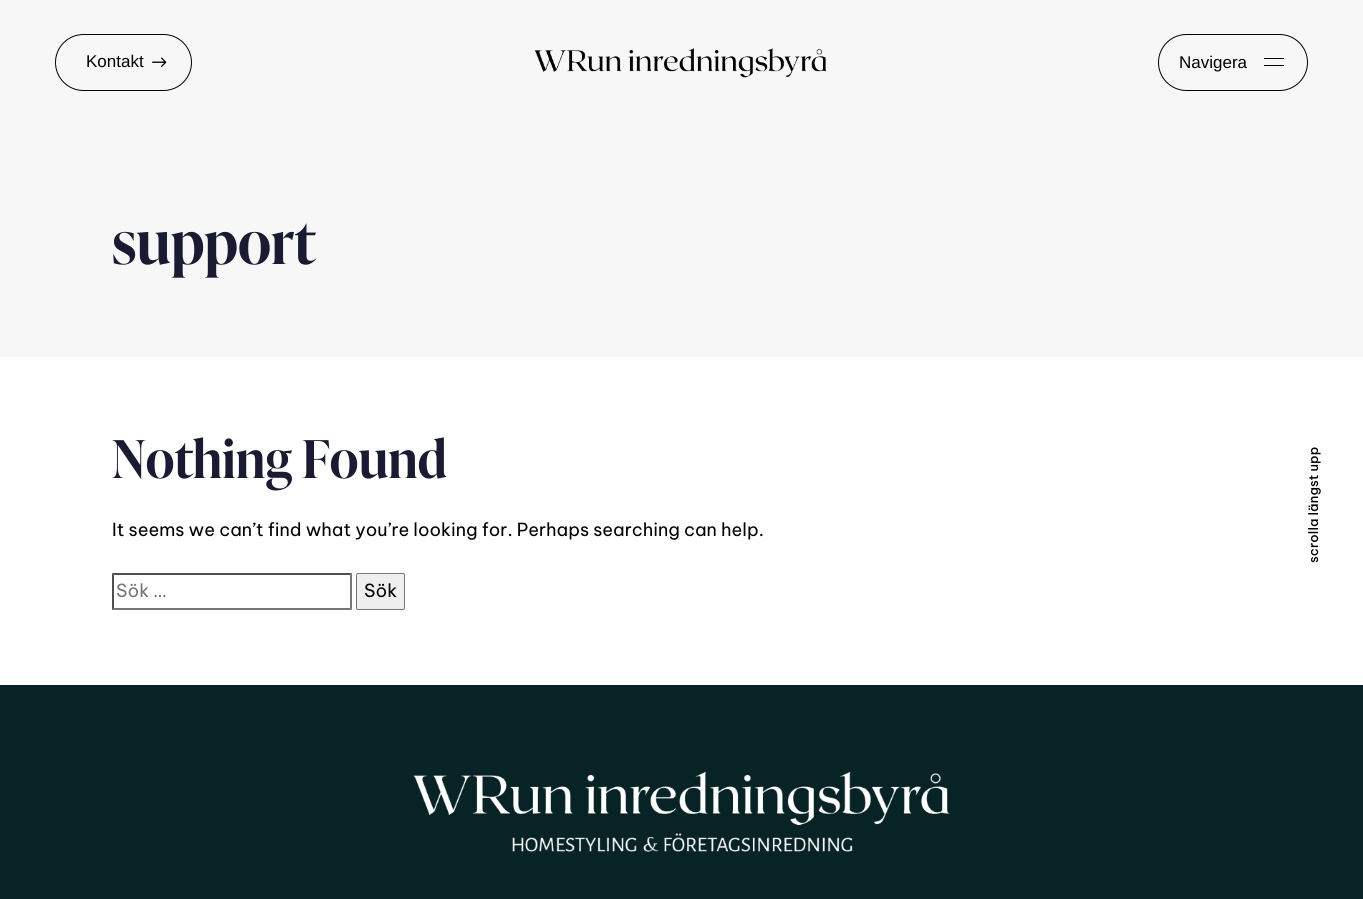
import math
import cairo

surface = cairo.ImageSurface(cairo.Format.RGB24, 1363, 899)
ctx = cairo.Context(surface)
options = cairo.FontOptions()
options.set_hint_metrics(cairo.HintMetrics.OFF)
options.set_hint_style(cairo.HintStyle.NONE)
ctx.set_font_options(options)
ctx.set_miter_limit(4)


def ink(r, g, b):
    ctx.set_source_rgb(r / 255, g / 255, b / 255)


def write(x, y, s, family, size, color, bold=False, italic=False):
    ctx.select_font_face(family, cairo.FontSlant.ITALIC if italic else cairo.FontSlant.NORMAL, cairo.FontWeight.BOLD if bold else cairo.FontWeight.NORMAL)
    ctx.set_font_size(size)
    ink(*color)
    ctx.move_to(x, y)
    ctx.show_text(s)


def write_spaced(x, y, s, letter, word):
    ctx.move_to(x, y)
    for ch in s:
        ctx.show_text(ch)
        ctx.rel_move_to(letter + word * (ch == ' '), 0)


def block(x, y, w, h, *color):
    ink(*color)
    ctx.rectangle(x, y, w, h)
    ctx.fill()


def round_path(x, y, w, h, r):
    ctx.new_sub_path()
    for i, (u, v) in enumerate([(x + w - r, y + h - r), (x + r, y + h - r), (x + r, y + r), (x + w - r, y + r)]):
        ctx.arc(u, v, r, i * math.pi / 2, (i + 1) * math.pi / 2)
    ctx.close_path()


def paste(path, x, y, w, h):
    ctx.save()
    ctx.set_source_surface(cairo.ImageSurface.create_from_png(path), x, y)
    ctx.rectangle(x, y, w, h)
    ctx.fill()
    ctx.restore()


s1 = dict(family="Liberation Sans", size=17, color=(0, 0, 0))
s2 = dict(family="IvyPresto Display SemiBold", size=60, color=(24, 27, 49))
s3 = dict(family="IvyPresto Display SemiBold", size=52, color=(24, 27, 49))
s4 = dict(family="Be Vietnam Pro", size=18, color=(0, 0, 0))
s5 = dict(family="Be Vietnam Pro", size=18, color=(117, 117, 117))

ink(255, 255, 255)
ctx.paint()
block(0, 0, 1363, 357, 247, 247, 247)
round_path(55.5, 34.5, 136, 56, 28)
ink(0, 0, 0)
ctx.set_line_width(1)
ctx.stroke()
write(86, 67, "Kontakt", **s1)
paste("pic1.png", 152, 57, 15, 10)
paste("pic2.png", 534, 48, 293, 30)
round_path(1158.5, 34.5, 149, 56, 28)
ctx.stroke()
write(1179, 68, "Navigera", **s1)
block(1264, 58, 20, 1, 0, 0, 0)
block(1264, 65, 20, 1, 0, 0, 0)
ctx.select_font_face("Be Vietnam Pro Medium")
ctx.set_font_size(13)
ctx.save()
ctx.translate(1318, 563)
ctx.rotate(-90 * math.pi / 180)
write_spaced(0, 0, "scrolla längst upp", 0.1, 0)
ctx.restore()
write(112, 264, "support", **s2)
write(112, 478, "Nothing Found", **s3)
write(112, 536, "It seems we can’t find what you’re looking for. Perhaps searching can help.", **s4)
ink(79, 79, 79)
ctx.new_path()
ctx.move_to(112, 573)
ctx.line_to(352, 573)
ctx.line_to(350, 575)
ctx.line_to(114, 575)
ctx.close_path()
ctx.fill()
ink(118, 118, 118)
ctx.new_path()
ctx.move_to(352, 573)
ctx.line_to(352, 610)
ctx.line_to(350, 608)
ctx.line_to(350, 575)
ctx.close_path()
ctx.fill()
ctx.new_path()
ctx.move_to(352, 610)
ctx.line_to(112, 610)
ctx.line_to(114, 608)
ctx.line_to(350, 608)
ctx.close_path()
ctx.fill()
ink(79, 79, 79)
ctx.new_path()
ctx.move_to(112, 610)
ctx.line_to(112, 573)
ctx.line_to(114, 575)
ctx.line_to(114, 608)
ctx.close_path()
ctx.fill()
write(116, 597, "Sök …", **s5)
ink(239, 239, 239)
round_path(356.5, 573.5, 48, 36, 1.5)
ctx.fill_preserve()
ink(118, 118, 118)
ctx.stroke()
write(364, 597, "Sök", **s4)
block(0, 685, 1363, 214, 7, 35, 38)
paste("pic3.png", 413, 771, 537, 81)
surface.write_to_png("screenshot.png")
